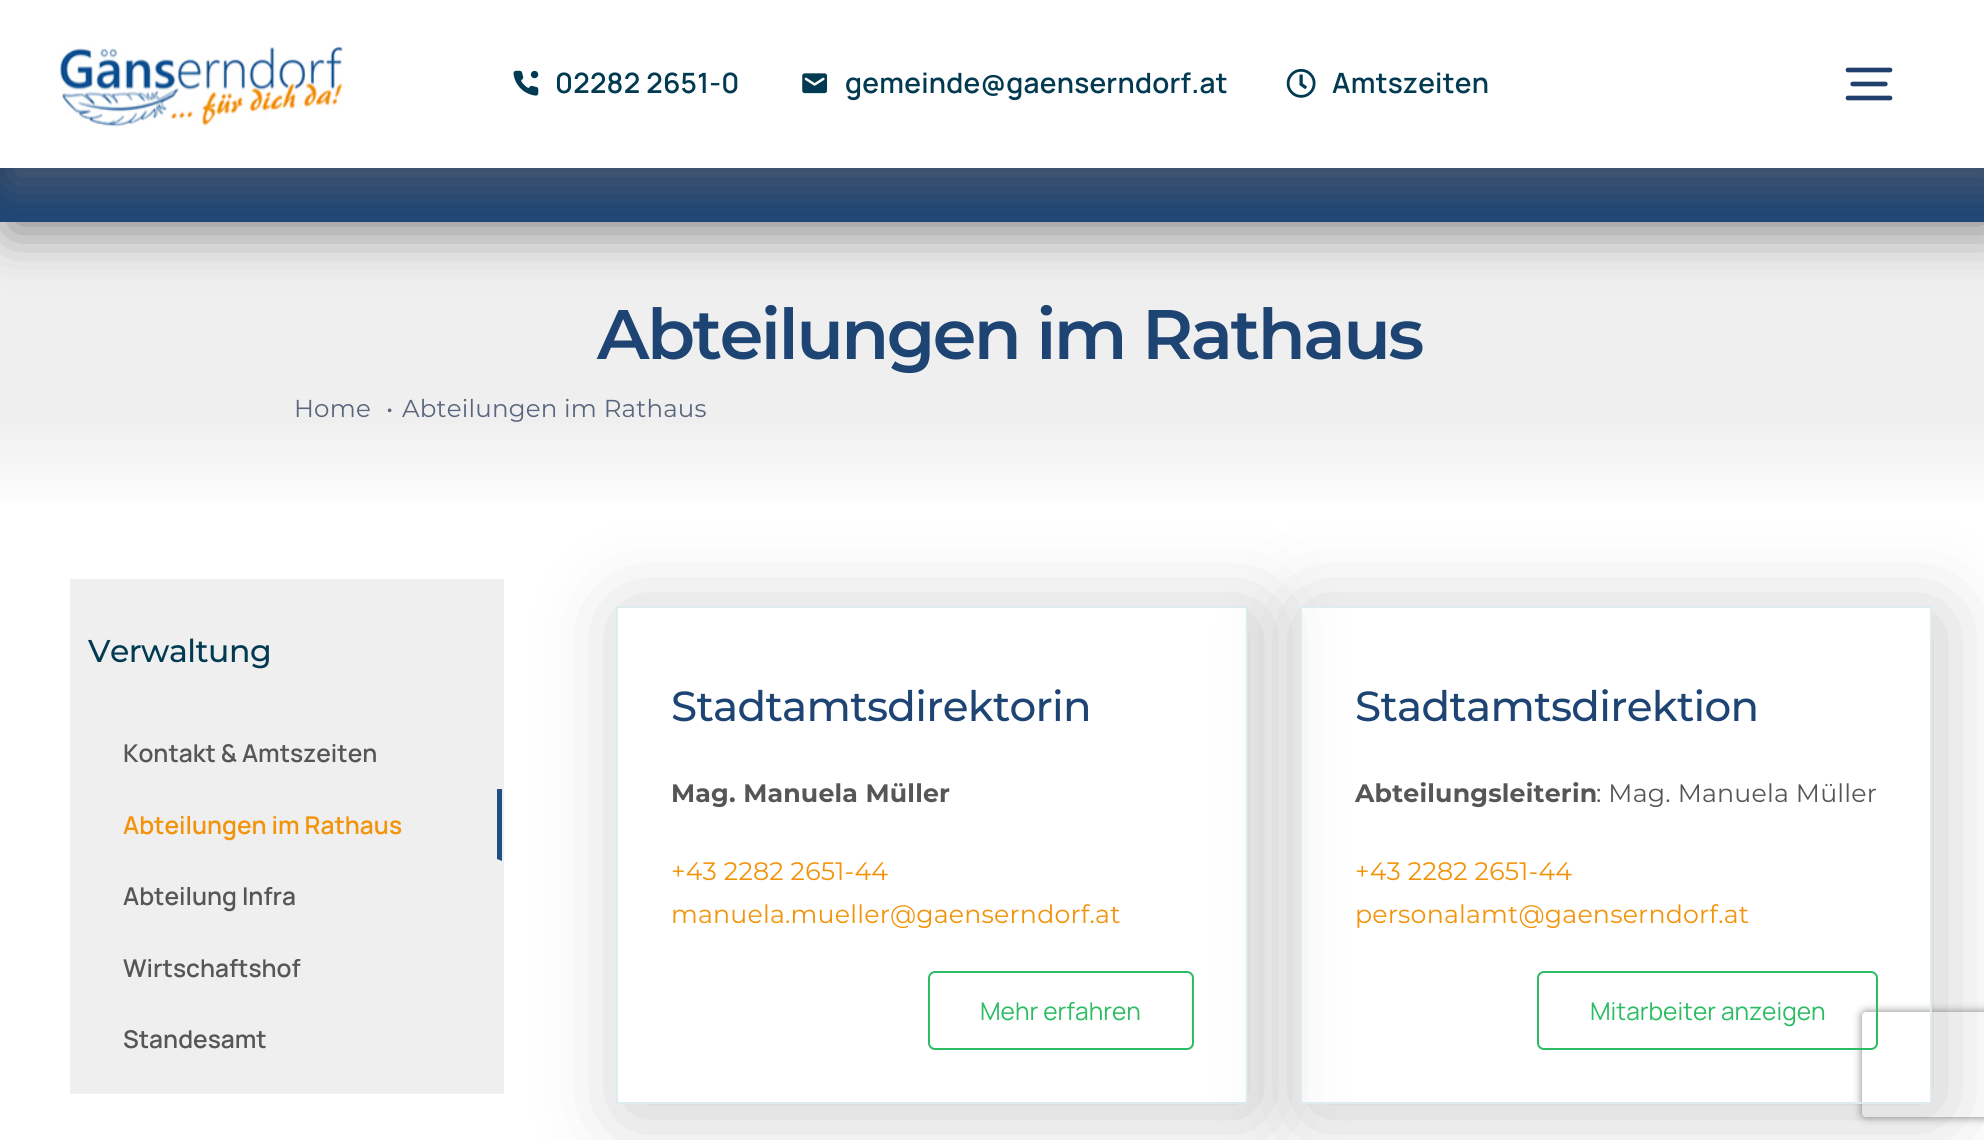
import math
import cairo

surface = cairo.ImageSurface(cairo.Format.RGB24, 1984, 1140)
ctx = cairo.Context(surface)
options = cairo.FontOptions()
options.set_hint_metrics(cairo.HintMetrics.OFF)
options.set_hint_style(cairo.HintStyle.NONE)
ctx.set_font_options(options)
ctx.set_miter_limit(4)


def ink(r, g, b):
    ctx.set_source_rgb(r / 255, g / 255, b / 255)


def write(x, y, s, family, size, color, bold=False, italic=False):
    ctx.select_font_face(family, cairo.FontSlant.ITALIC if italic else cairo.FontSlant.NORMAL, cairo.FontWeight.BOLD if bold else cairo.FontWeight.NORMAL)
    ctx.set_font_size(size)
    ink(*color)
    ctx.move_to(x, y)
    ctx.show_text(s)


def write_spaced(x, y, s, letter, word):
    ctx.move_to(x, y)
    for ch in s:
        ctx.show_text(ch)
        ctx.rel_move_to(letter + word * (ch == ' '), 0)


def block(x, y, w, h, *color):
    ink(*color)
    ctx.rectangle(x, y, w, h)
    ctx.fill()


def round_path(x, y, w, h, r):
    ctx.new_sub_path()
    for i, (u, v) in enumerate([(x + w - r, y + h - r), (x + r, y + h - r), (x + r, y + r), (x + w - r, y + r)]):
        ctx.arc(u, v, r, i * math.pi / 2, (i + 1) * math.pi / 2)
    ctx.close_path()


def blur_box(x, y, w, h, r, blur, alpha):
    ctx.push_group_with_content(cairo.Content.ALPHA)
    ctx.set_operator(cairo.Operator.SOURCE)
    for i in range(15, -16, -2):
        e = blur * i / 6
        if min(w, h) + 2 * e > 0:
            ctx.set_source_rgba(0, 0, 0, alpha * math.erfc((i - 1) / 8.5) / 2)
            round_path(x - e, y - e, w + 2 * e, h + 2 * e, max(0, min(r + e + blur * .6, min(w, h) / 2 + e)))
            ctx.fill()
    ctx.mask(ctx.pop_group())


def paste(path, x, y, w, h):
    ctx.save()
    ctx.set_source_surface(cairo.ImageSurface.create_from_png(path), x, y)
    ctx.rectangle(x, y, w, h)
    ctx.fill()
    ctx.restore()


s1 = dict(family="Manrope SemiBold", size=24.5, color=(86, 86, 86))
s2 = dict(family="Manrope SemiBold", size=24.5, color=(243, 147, 9))
s3 = dict(family="Manrope", size=24.5, color=(44, 188, 99))

ink(255, 255, 255)
ctx.paint()
gradient = cairo.LinearGradient(992, 220, 992, 518)
gradient.add_color_stop_rgba(0.67, 0.937, 0.937, 0.937, 1)
gradient.add_color_stop_rgba(1, 1, 1, 1, 1)
ctx.set_source(gradient)
ctx.rectangle(0, 222, 1984, 281)
ctx.fill()
ink(0, 0, 0)
blur_box(9, 177, 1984, 54, 0, 26, 0.44)
gradient = cairo.LinearGradient(992, 168, 992, 222)
gradient.add_color_stop_rgba(0, 0.114, 0.227, 0.376, 1)
gradient.add_color_stop_rgba(1, 0.114, 0.271, 0.459, 1)
ctx.set_source(gradient)
ctx.rectangle(0, 168, 1984, 54)
ctx.fill()
ink(163, 163, 163)
blur_box(9, 14, 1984, 168, 0, 26, 0.36)
block(0, 0, 1984, 168, 255, 255, 255)
paste("pic1.png", 60, 46, 283, 81)
paste("pic2.png", 513, 70, 26, 26)
ctx.select_font_face("Manrope SemiBold")
ctx.set_font_size(28)
ink(2, 58, 81)
write_spaced(555, 93, "02282 2651-0", 0.25, 0)
paste("pic3.png", 802, 73, 26, 21)
write_spaced(845, 93, "gemeinde@gaenserndorf.at", 0.25, 0)
paste("pic4.png", 1286, 68, 30, 30)
write_spaced(1332, 93, "Amtszeiten", 0.25, 0)
paste("pic5.png", 1845, 67, 48, 34)
ctx.select_font_face("Montserrat SemiBold")
ctx.set_font_size(70)
ink(29, 68, 115)
write_spaced(597, 359, "Abteilungen im Rathaus", -2.5, 0)
ctx.select_font_face("Montserrat")
ctx.set_font_size(24.5)
ink(89, 102, 125)
write_spaced(294, 417, "Home", 0.2, 0)
write_spaced(386, 417, "•", 0.2, 0)
write_spaced(402, 417, "Abteilungen im Rathaus", 0.2, 0)
block(70, 579, 434, 515, 239, 239, 239)
ctx.select_font_face("Montserrat Medium")
ctx.set_font_size(31.5)
ink(2, 58, 81)
write_spaced(88, 662, "Verwaltung", -0.5, 0)
write(123, 762, "Kontakt & Amtszeiten", **s1)
ink(30, 80, 131)
ctx.new_path()
ctx.move_to(502, 789)
ctx.line_to(502, 861)
ctx.line_to(497, 859)
ctx.line_to(497, 789)
ctx.close_path()
ctx.fill()
write(123, 834, "Abteilungen im Rathaus", **s2)
write(123, 905, "Abteilung Infra", **s1)
write(123, 977, "Wirtschaftshof", **s1)
write(123, 1048, "Standesamt", **s1)
ctx.save()
ctx.set_fill_rule(cairo.FillRule.EVEN_ODD)
ctx.new_path()
ctx.move_to(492, 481)
ctx.line_to(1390, 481)
ctx.line_to(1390, 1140)
ctx.line_to(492, 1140)
ctx.close_path()
ctx.move_to(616, 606)
ctx.line_to(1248, 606)
ctx.line_to(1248, 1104)
ctx.line_to(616, 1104)
ctx.close_path()
ctx.clip()
ink(0, 0, 0)
blur_box(625, 614, 632, 499, 0, 44, 0.21)
ctx.restore()
ctx.rectangle(617, 607, 630, 496)
ink(223, 236, 239)
ctx.stroke()
ctx.select_font_face("Montserrat Medium")
ctx.set_font_size(42)
ink(29, 68, 115)
write_spaced(671, 721, "Stadtamtsdirektorin", -0.7, 0)
ctx.select_font_face("Montserrat", cairo.FontSlant.NORMAL, cairo.FontWeight.BOLD)
ctx.set_font_size(25.25)
ink(86, 86, 86)
write_spaced(671, 802, "Mag. Manuela Müller", 0.2, 0)
ctx.select_font_face("Montserrat")
ink(243, 147, 9)
write_spaced(671, 880, "+43 2282 2651-44", 0.2, 0)
write_spaced(671, 923, "manuela.mueller@gaenserndorf.at", 0.2, 0)
round_path(929, 972, 264, 77, 6)
ink(44, 188, 99)
ctx.stroke()
write(980, 1020, "Mehr erfahren", **s3)
ctx.save()
ctx.set_fill_rule(cairo.FillRule.EVEN_ODD)
ctx.new_path()
ctx.move_to(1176, 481)
ctx.line_to(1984, 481)
ctx.line_to(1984, 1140)
ctx.line_to(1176, 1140)
ctx.close_path()
ctx.move_to(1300, 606)
ctx.line_to(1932, 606)
ctx.line_to(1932, 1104)
ctx.line_to(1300, 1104)
ctx.close_path()
ctx.clip()
ink(0, 0, 0)
blur_box(1309, 614, 632, 499, 0, 44, 0.21)
ctx.restore()
ctx.save()
ctx.set_fill_rule(cairo.FillRule.EVEN_ODD)
ctx.new_path()
ctx.move_to(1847, 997)
ctx.line_to(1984, 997)
ctx.line_to(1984, 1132)
ctx.line_to(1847, 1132)
ctx.close_path()
ctx.move_to(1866, 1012)
ctx.line_to(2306, 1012)
ctx.curve_to(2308, 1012, 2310, 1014, 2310, 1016)
ctx.line_to(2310, 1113)
ctx.curve_to(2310, 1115, 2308, 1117, 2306, 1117)
ctx.line_to(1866, 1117)
ctx.curve_to(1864, 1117, 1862, 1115, 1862, 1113)
ctx.line_to(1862, 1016)
ctx.curve_to(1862, 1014, 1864, 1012, 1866, 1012)
ctx.close_path()
ctx.clip()
ink(128, 128, 128)
blur_box(1862, 1012, 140, 105, 4, 4.5, 1)
ctx.restore()
ctx.rectangle(1301, 607, 630, 496)
ink(223, 236, 239)
ctx.stroke()
ctx.select_font_face("Montserrat Medium")
ctx.set_font_size(42)
ink(29, 68, 115)
write_spaced(1355, 721, "Stadtamtsdirektion", -0.7, 0)
ctx.select_font_face("Montserrat", cairo.FontSlant.NORMAL, cairo.FontWeight.BOLD)
ctx.set_font_size(25.25)
ink(86, 86, 86)
write_spaced(1355, 802, "Abteilungsleiterin", 0.2, 0)
ctx.select_font_face("Montserrat")
write_spaced(1596, 802, ": Mag. Manuela Müller", 0.2, 0)
ink(243, 147, 9)
write_spaced(1355, 880, "+43 2282 2651-44", 0.2, 0)
write_spaced(1355, 923, "personalamt@gaenserndorf.at", 0.2, 0)
round_path(1538, 972, 339, 77, 6)
ink(44, 188, 99)
ctx.stroke()
write(1590, 1020, "Mitarbeiter anzeigen", **s3)
surface.write_to_png("screenshot.png")
